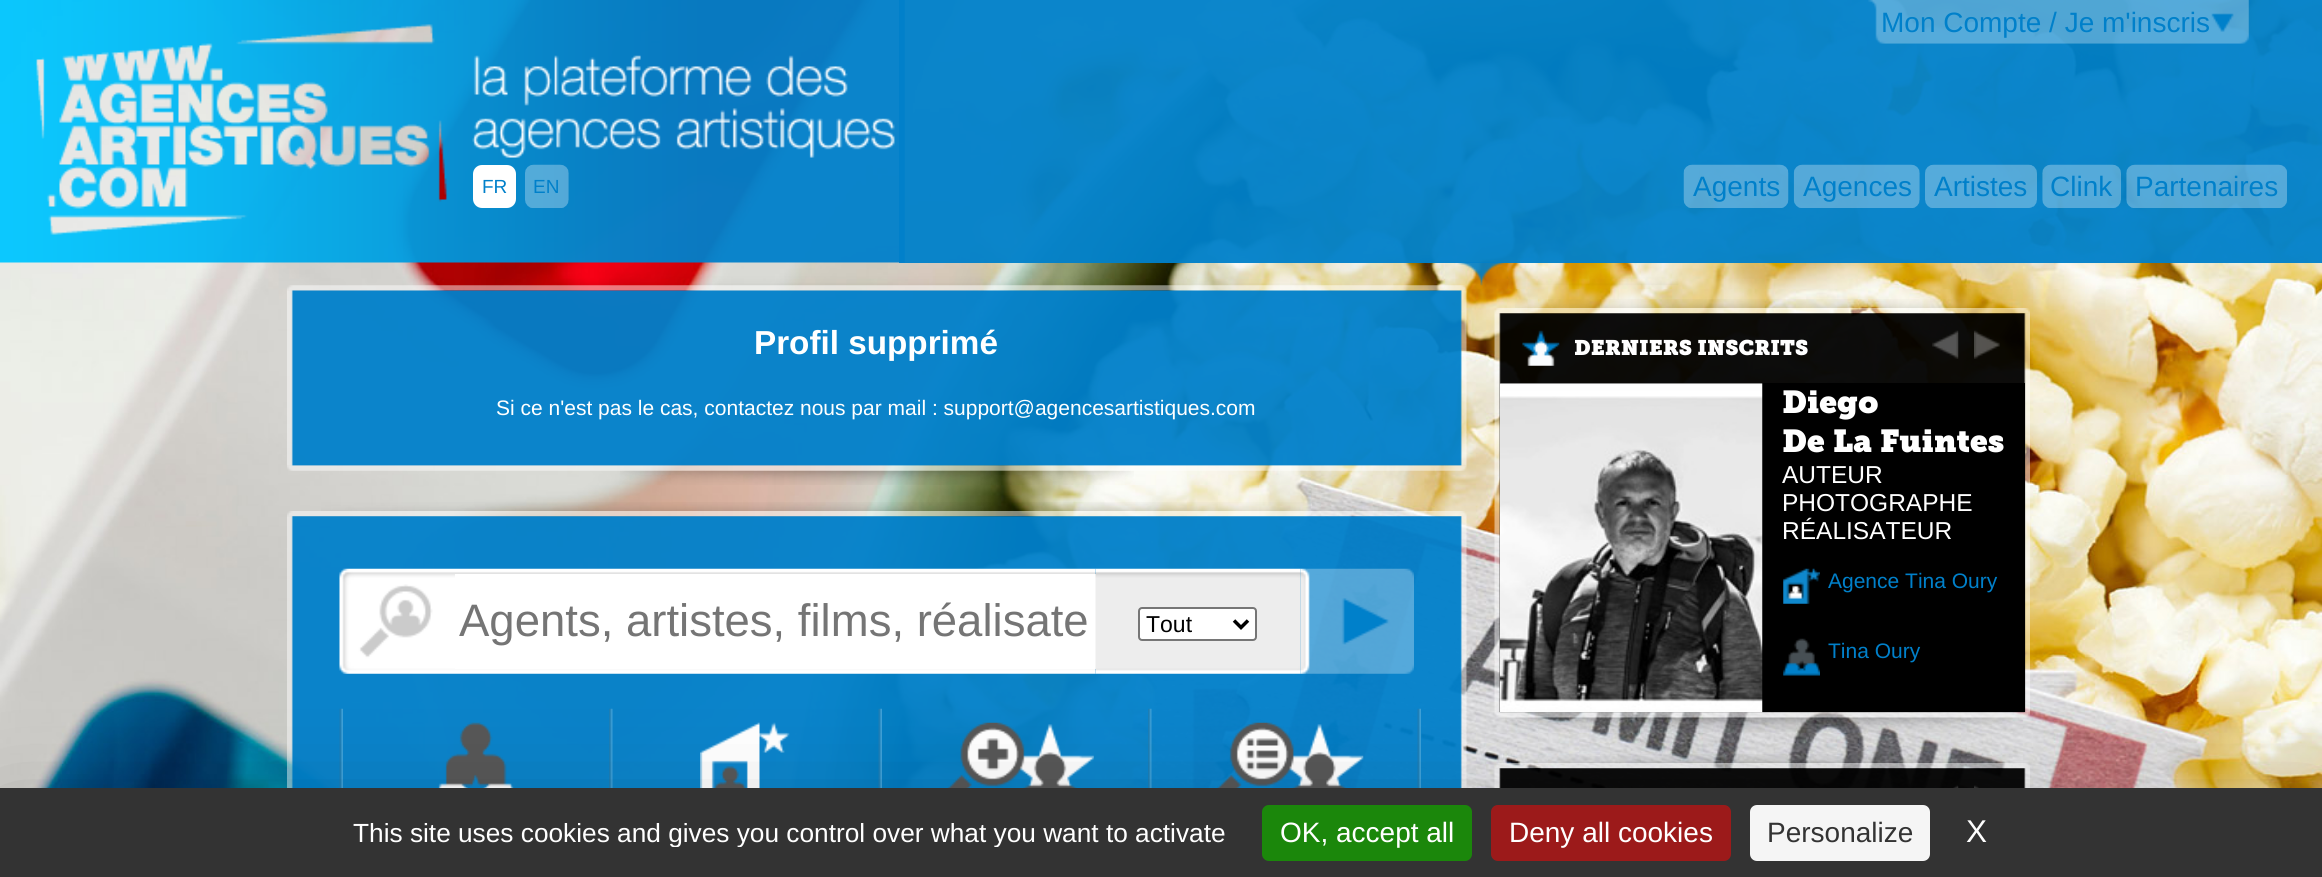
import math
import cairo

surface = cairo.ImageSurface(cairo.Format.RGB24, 2322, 877)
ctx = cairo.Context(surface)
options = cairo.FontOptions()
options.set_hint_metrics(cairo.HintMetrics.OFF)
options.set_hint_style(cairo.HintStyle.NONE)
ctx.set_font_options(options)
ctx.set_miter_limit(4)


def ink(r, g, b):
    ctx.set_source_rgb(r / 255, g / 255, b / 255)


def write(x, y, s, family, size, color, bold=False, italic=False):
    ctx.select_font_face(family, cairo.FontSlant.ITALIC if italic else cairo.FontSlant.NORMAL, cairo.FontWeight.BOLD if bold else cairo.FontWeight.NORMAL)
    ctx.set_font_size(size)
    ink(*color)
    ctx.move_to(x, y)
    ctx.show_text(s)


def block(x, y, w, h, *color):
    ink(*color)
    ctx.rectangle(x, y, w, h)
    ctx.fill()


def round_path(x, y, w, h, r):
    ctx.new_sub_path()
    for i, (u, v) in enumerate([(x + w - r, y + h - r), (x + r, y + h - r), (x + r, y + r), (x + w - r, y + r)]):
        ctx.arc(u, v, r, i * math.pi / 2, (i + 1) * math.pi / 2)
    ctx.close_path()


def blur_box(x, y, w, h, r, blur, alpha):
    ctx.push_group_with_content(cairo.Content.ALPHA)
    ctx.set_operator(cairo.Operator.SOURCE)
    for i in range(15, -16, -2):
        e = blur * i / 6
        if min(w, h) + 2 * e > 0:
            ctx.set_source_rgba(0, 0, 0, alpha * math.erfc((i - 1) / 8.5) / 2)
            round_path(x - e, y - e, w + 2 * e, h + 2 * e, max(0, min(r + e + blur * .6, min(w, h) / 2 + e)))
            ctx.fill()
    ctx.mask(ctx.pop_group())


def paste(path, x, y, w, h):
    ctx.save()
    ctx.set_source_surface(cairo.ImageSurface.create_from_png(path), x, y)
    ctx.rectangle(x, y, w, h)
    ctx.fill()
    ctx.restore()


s1 = dict(family="Liberation Sans", size=19, color=(0, 128, 202))
s2 = dict(family="Liberation Sans", size=28, color=(0, 128, 202))
s3 = dict(family="Liberation Sans", size=33.25, color=(255, 255, 255), bold=True)
s4 = dict(family="Liberation Sans", size=21, color=(255, 255, 255))
s5 = dict(family="Liberation Sans", size=45.5, color=(117, 117, 117))
s6 = dict(family="Liberation Sans", size=23, color=(0, 0, 0))
s7 = dict(family="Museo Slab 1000 Black", size=21, color=(255, 255, 255))
s8 = dict(family="Museo Slab 1000 Black", size=31.5, color=(255, 255, 255))
s9 = dict(family="Liberation Sans", size=24.5, color=(255, 255, 255))
s10 = dict(family="Liberation Sans", size=21, color=(0, 128, 202))
s11 = dict(family="Liberation Sans", size=26.25, color=(255, 255, 255))
s12 = dict(family="Liberation Sans", size=28, color=(255, 255, 255))
s13 = dict(family="Liberation Sans", size=28, color=(51, 51, 51))
s14 = dict(family="Liberation Sans", size=31.5, color=(255, 255, 255))

ink(255, 255, 255)
ctx.paint()
paste("pic1.png", 0, 0, 2322, 788)
ctx.set_source_rgba(0, 0.502, 0.792, 0.95)
ctx.rectangle(899, 0, 1423, 263)
ctx.fill()
paste("pic10.png", 580, 262, 1318, 24)
paste("pic2.png", 0, 0, 905, 263)
ink(255, 255, 255)
round_path(473, 165, 43, 43, 9)
ctx.fill()
write(482, 193, "FR", **s1)
paste("pic3.png", 525, 164, 44, 44)
write(533, 193, "EN", **s1)
paste("pic4.png", 1868, 0, 381, 44)
write(1881, 32, "Mon Compte / Je m'inscris", **s2)
paste("pic5.png", 1683, 164, 106, 44)
write(1693, 196, "Agents", **s2)
paste("pic6.png", 1793, 164, 127, 44)
write(1803, 196, "Agences", **s2)
paste("pic7.png", 1925, 164, 112, 44)
write(1934, 196, "Artistes", **s2)
paste("pic8.png", 2042, 164, 79, 44)
write(2050, 196, "Clink", **s2)
paste("pic9.png", 2126, 164, 161, 44)
write(2135, 196, "Partenaires", **s2)
paste("pic11.png", 287, 285, 1180, 6)
paste("pic12.png", 287, 290, 1180, 176)
write(754, 354, "Profil supprimé", **s3)
write(496, 415, "Si ce n'est pas le cas, contactez nous par mail : support@agencesartistiques.com", **s4)
paste("pic13.png", 287, 465, 1180, 6)
paste("pic14.png", 620, 470, 514, 15)
paste("pic15.png", 321, 502, 1111, 9)
paste("pic16.png", 287, 511, 1180, 6)
paste("pic17.png", 287, 516, 1180, 272)
paste("pic18.png", 339, 568, 116, 106)
paste("pic19.png", 455, 568, 641, 106)
block(455, 574, 641, 95, 255, 255, 255)
write(459, 636, "Agents, artistes, films, réalisate", **s5)
paste("pic20.png", 1095, 568, 206, 106)
ink(255, 255, 255)
round_path(1139, 608, 117, 32, 3)
ctx.fill_preserve()
ink(118, 118, 118)
ctx.stroke()
ctx.new_path()
ctx.move_to(1234, 620.5)
ctx.line_to(1241, 627.5)
ctx.line_to(1248, 620.5)
ink(0, 0, 0)
ctx.set_line_width(3.5)
ctx.stroke()
write(1146, 632, "Tout", **s6)
paste("pic21.png", 1300, 568, 114, 106)
paste("pic22.png", 339, 708, 4, 80)
paste("pic23.png", 438, 722, 76, 66)
paste("pic24.png", 609, 708, 4, 80)
paste("pic25.png", 700, 722, 90, 66)
paste("pic26.png", 878, 708, 4, 80)
paste("pic27.png", 947, 722, 147, 66)
paste("pic28.png", 1148, 708, 4, 80)
paste("pic29.png", 1217, 722, 147, 66)
paste("pic30.png", 1417, 708, 4, 80)
paste("pic31.png", 1515, 299, 495, 9)
paste("pic32.png", 1494, 308, 536, 6)
paste("pic33.png", 1494, 313, 536, 400)
paste("pic34.png", 1522, 330, 38, 36)
write(1574, 355, "DERNIERS INSCRITS", **s7)
paste("pic35.png", 1932, 330, 27, 29)
paste("pic36.png", 1974, 330, 26, 29)
block(1500, 383, 525, 329, 0, 0, 0)
paste("pic40.png", 1494, 712, 536, 6)
paste("pic37.png", 1499, 383, 264, 330)
write(1782, 413, "Diego", **s8)
write(1782, 452, "De La Fuintes", **s8)
write(1782, 483, "AUTEUR", **s9)
write(1782, 511, "PHOTOGRAPHE", **s9)
write(1782, 539, "RÉALISATEUR", **s9)
paste("pic38.png", 1783, 568, 37, 36)
write(1828, 588, "Agence Tina Oury", **s10)
paste("pic39.png", 1783, 638, 37, 38)
write(1828, 658, "Tina Oury", **s10)
paste("pic41.png", 1505, 717, 514, 15)
paste("pic42.png", 1519, 754, 491, 9)
paste("pic43.png", 1494, 763, 536, 6)
paste("pic44.png", 1494, 768, 536, 20)
paste("pic45.png", 1953, 785, 6, 3)
paste("pic46.png", 1974, 785, 5, 3)
ink(0, 0, 0)
blur_box(0, 823, 2322, 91, 0, 52.5, 0.25)
block(0, 788, 2322, 89, 51, 51, 51)
ctx.save()
ctx.rectangle(336, 817, 907, 30)
ctx.clip()
write(353, 842, "This site uses cookies and gives you control over what you want to activate", **s11)
ctx.restore()
ink(27, 135, 11)
round_path(1262, 805, 210, 56, 7)
ctx.fill()
write(1280, 842, "OK, accept all", **s12)
ink(156, 26, 26)
round_path(1491, 805, 240, 56, 7)
ctx.fill()
write(1509, 842, "Deny all cookies", **s12)
ink(245, 245, 245)
round_path(1750, 805, 180, 56, 7)
ctx.fill()
write(1767, 842, "Personalize", **s13)
write(1966, 842, "X", **s14)
surface.write_to_png("screenshot.png")
